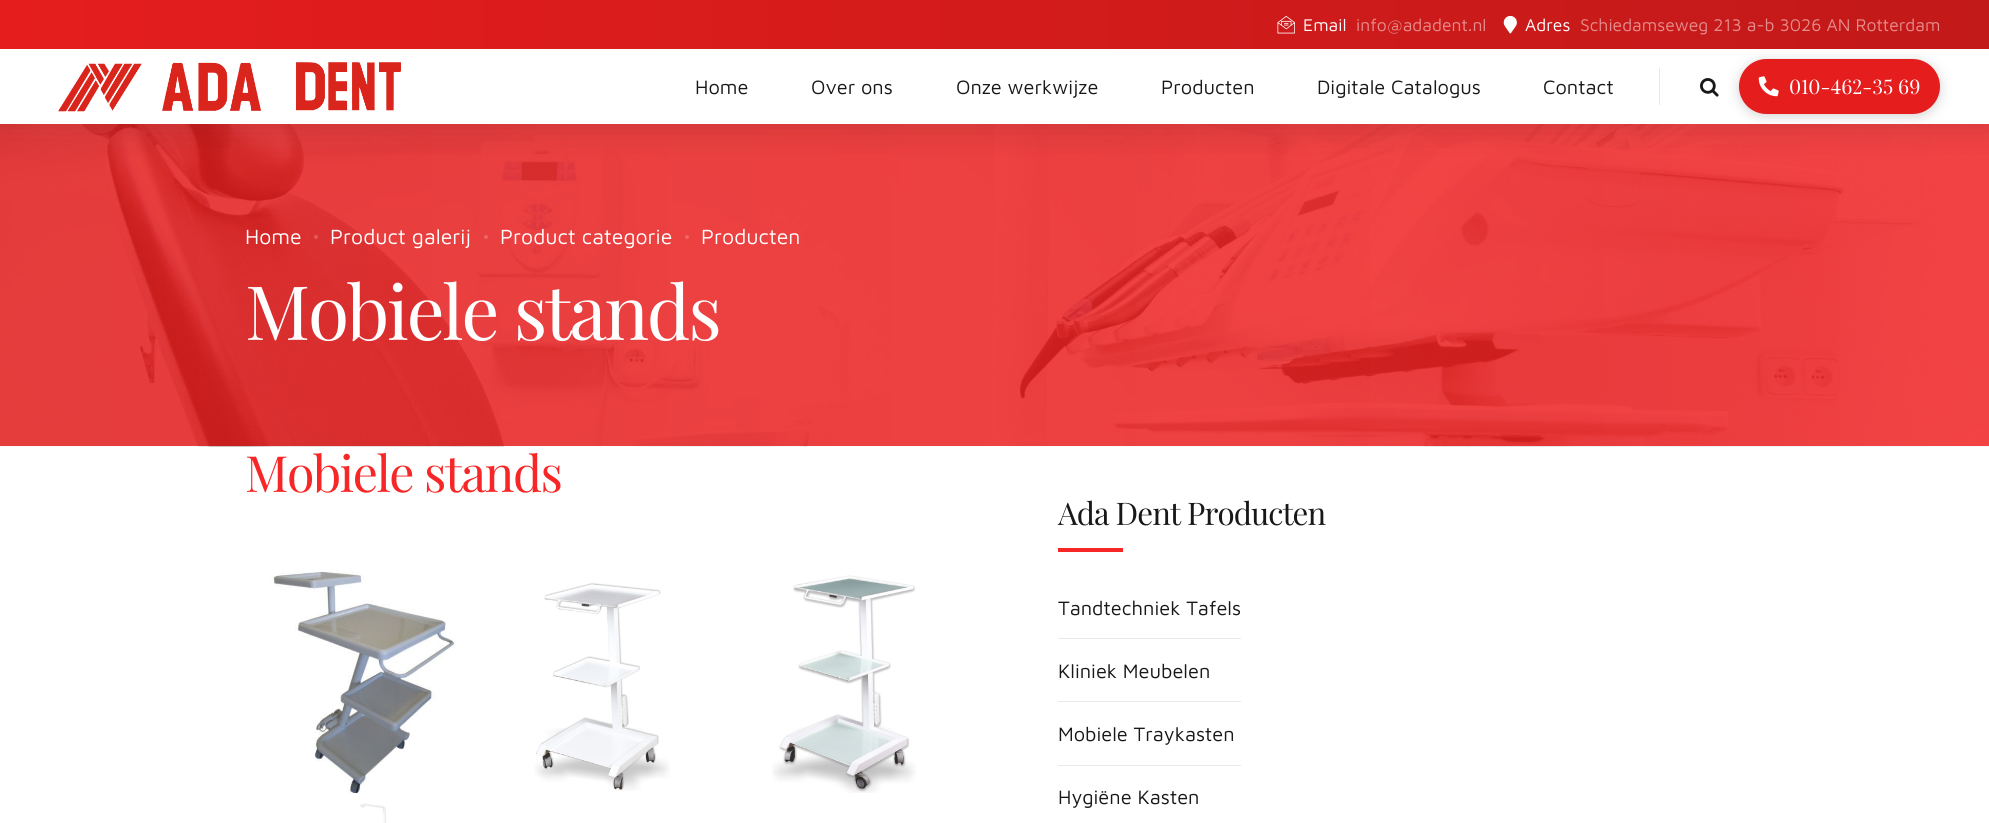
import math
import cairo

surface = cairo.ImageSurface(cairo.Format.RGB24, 1989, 823)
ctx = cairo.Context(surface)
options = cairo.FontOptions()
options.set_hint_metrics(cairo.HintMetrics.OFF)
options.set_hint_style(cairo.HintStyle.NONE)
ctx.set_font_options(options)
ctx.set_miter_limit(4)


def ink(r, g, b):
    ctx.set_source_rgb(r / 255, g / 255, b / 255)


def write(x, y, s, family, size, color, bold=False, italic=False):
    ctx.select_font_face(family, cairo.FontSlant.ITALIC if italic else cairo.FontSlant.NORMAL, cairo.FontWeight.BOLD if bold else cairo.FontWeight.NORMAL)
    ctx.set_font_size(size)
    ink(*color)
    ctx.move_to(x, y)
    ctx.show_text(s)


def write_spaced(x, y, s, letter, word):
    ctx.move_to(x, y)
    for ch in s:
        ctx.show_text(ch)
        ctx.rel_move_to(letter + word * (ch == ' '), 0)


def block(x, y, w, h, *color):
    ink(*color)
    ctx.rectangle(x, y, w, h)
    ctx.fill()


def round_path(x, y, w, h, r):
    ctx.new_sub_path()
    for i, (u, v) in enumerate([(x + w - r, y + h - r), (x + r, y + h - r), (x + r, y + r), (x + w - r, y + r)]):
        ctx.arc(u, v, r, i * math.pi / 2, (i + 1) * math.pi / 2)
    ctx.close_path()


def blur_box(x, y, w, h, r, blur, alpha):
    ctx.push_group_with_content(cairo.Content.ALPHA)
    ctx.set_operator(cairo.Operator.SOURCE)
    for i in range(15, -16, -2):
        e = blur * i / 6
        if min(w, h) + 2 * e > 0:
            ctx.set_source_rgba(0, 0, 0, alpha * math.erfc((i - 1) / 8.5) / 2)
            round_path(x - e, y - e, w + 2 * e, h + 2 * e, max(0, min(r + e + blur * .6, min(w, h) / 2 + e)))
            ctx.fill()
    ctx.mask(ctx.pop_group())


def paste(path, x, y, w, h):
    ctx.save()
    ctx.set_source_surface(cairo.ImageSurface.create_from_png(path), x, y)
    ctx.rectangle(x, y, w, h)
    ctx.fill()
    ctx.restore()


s1 = dict(family="Maven Pro", size=17.5, color=(255, 255, 255))
s2 = dict(family="Maven Pro", size=17.5, color=(230, 141, 141))
s3 = dict(family="Maven Pro", size=20, color=(24, 24, 24))
s4 = dict(family="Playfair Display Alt", size=20, color=(255, 255, 255))
s5 = dict(family="Maven Pro", size=21.25, color=(255, 255, 255))

ink(255, 255, 255)
ctx.paint()
paste("pic6.png", 0, 124, 1989, 323)
ink(0, 0, 0)
blur_box(0, 3, 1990, 123, 0, 19, 0.15)
block(0, 49, 1989, 75, 255, 255, 255)
ink(34, 34, 34)
blur_box(1739, 61, 201, 55, 27.5, 6, 0.2)
gradient = cairo.LinearGradient(0, 24, 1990, 24)
gradient.add_color_stop_rgba(0, 0.898, 0.114, 0.114, 1)
gradient.add_color_stop_rgba(1, 0.761, 0.098, 0.098, 1)
ctx.set_source(gradient)
ctx.rectangle(0, 0, 1989, 49)
ctx.fill()
paste("pic1.png", 1277, 16, 18, 18)
write(1303, 31, "Email", **s1)
write(1356, 31, "info@adadent.nl", **s2)
paste("pic2.png", 1503, 15, 14, 19)
write(1525, 31, "Adres", **s1)
write(1580, 31, "Schiedamseweg 213 a-b 3026 AN Rotterdam", **s2)
paste("pic3.png", 58, 62, 343, 50)
write(695, 94, "Home", **s3)
write(811, 94, "Over ons", **s3)
write(956, 94, "Onze werkwijze", **s3)
write(1161, 94, "Producten", **s3)
write(1317, 94, "Digitale Catalogus", **s3)
write(1543, 94, "Contact", **s3)
block(1659, 68, 1, 37, 232, 232, 232)
paste("pic4.png", 1700, 78, 19, 19)
gradient = cairo.LinearGradient(1739, 86, 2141, 86)
gradient.add_color_stop_rgba(0.51, 0.898, 0.114, 0.114, 1)
gradient.add_color_stop_rgba(1, 0.969, 0.153, 0.153, 1)
ctx.set_source(gradient)
round_path(1739, 59, 201, 55, 27.5)
ctx.fill()
paste("pic5.png", 1758, 76, 21, 21)
write(1789, 94, "010-462-35 69", **s4)
write(245, 244, "Home", **s5)
ctx.set_source_rgba(1, 1, 1, 0.2)
ctx.new_path()
ctx.arc(316, 237, 2, 0, 2 * math.pi)
ctx.fill()
write(330, 244, "Product galerij", **s5)
ink(238, 101, 102)
ctx.new_path()
ctx.arc(486, 237, 2, 0, 2 * math.pi)
ctx.fill()
write(500, 244, "Product categorie", **s5)
ink(240, 102, 103)
ctx.new_path()
ctx.arc(687, 237, 2, 0, 2 * math.pi)
ctx.fill()
write(701, 244, "Producten", **s5)
ctx.select_font_face("Playfair Display")
ctx.set_font_size(75)
write_spaced(245, 340, "Mobiele stands", -2.25, 0)
ctx.set_font_size(50)
ink(247, 39, 39)
write_spaced(245, 492, "Mobiele stands", -1.5, 0)
paste("pic7.png", 270, 571, 186, 223)
paste("pic8.png", 534, 583, 136, 208)
paste("pic9.png", 772, 575, 144, 218)
paste("pic10.png", 360, 803, 27, 20)
ctx.set_font_size(31.25)
ink(24, 24, 24)
write_spaced(1058, 525, "Ada Dent Producten", -0.9, 0)
block(1058, 548, 65, 4, 247, 39, 39)
block(1058, 638, 183, 1, 233, 233, 233)
write(1058, 615, "Tandtechniek Tafels", **s3)
block(1058, 701, 183, 1, 233, 233, 233)
write(1058, 678, "Kliniek Meubelen", **s3)
block(1058, 765, 183, 1, 233, 233, 233)
write(1058, 741, "Mobiele Traykasten", **s3)
write(1058, 804, "Hygiëne Kasten", **s3)
surface.write_to_png("screenshot.png")
